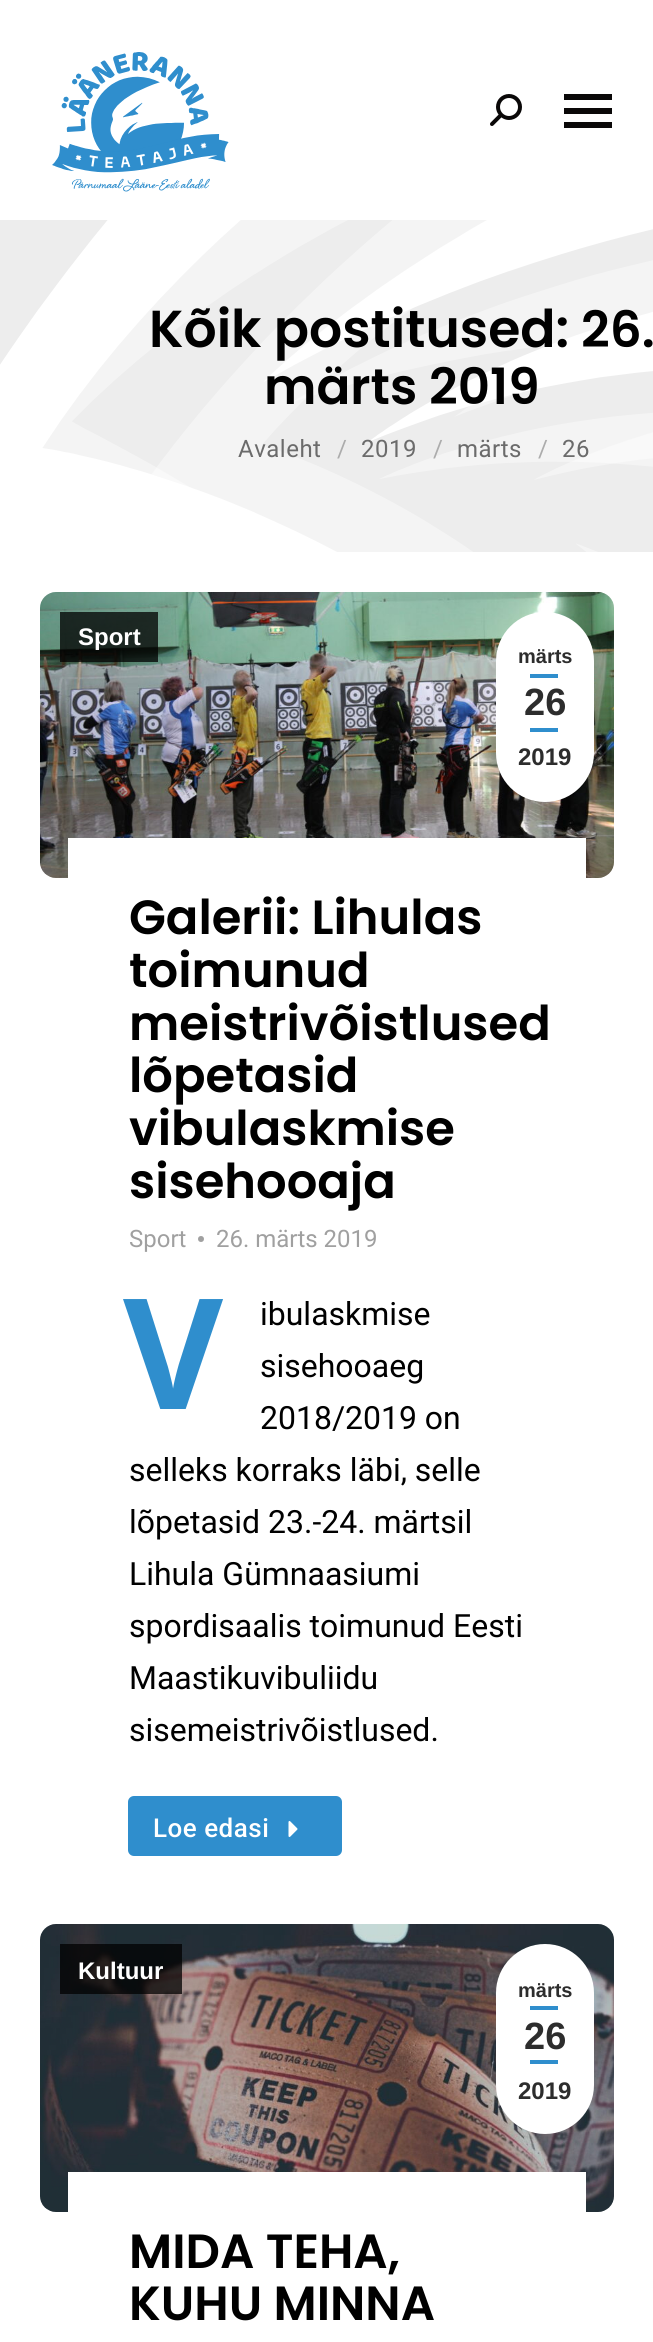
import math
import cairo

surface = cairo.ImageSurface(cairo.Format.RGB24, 653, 2342)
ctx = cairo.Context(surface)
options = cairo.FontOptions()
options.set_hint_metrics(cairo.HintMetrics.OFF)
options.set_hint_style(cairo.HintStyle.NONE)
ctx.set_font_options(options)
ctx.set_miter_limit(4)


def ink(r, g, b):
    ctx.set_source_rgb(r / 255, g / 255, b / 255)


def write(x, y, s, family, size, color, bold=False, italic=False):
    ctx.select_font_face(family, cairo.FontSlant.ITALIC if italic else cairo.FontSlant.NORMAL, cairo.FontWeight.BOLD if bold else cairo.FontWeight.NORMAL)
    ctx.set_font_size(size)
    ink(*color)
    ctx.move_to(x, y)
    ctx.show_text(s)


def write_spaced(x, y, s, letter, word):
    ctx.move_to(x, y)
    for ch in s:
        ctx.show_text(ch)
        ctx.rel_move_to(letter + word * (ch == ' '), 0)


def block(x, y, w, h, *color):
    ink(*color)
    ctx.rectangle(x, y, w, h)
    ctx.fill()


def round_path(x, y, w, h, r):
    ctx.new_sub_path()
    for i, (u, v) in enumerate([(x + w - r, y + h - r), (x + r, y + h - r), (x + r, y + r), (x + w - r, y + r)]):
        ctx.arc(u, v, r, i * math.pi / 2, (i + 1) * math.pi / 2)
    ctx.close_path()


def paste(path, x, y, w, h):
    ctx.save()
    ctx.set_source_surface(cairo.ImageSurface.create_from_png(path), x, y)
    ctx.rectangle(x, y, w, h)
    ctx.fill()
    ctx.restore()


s1 = dict(family="Poppins SemiBold", size=52, color=(0, 0, 0))
s2 = dict(family="Poppins SemiBold", size=50, color=(0, 0, 0))
s3 = dict(family="Liberation Sans", size=24, color=(255, 255, 255), bold=True)
s4 = dict(family="Liberation Sans", size=20, color=(45, 45, 45), bold=True)
s5 = dict(family="Liberation Sans", size=38, color=(45, 45, 45), bold=True)
s6 = dict(family="Liberation Sans", size=24, color=(45, 45, 45), bold=True)
s7 = dict(family="Poppins SemiBold", size=48, color=(0, 0, 0))
s8 = dict(family="Roboto", size=24, color=(160, 160, 160))
s9 = dict(family="Noto Sans", size=154, color=(47, 142, 205), bold=True)
s10 = dict(family="Roboto", size=32, color=(0, 0, 0))

ink(255, 255, 255)
ctx.paint()
paste("pic1.png", 52, 52, 177, 140)
paste("pic2.png", 490, 94, 32, 32)
block(564, 94, 48, 6, 10, 8, 8)
block(564, 108, 48, 6, 10, 8, 8)
block(564, 122, 48, 6, 10, 8, 8)
block(0, 220, 653, 332, 237, 237, 237)
paste("pic3.png", 0, 220, 653, 332)
write(149, 347, "Kõik postitused:", **s1)
write(581, 347, "26.", **s2)
write(264, 404, "märts 2019", **s2)
ctx.select_font_face("Roboto")
ctx.set_font_size(24)
ink(107, 107, 107)
write_spaced(238, 457, "Avaleht", 0.5, 0)
ink(172, 172, 172)
write_spaced(337, 457, "/", 0.5, 0)
ink(107, 107, 107)
write_spaced(361, 457, "2019", 0.5, 0)
ink(172, 172, 172)
write_spaced(433, 457, "/", 0.5, 0)
ink(107, 107, 107)
write_spaced(457, 457, "märts", 0.5, 0)
ink(172, 172, 172)
write_spaced(538, 457, "/", 0.5, 0)
ink(107, 107, 107)
write_spaced(562, 457, "26", 0.5, 0)
paste("pic4.png", 40, 592, 574, 286)
ctx.set_source_rgba(0, 0, 0, 0.75)
ctx.rectangle(60, 612, 98, 50)
ctx.fill()
write(78, 645, "Sport", **s3)
round_path(496, 612, 98, 190, 49)
ctx.fill()
write(518, 663, "märts", **s4)
block(530, 674, 28, 4, 47, 142, 205)
write(524, 715, "26", **s5)
block(530, 728, 28, 4, 47, 142, 205)
write(518, 765, "2019", **s6)
block(68, 838, 518, 40, 255, 255, 255)
write(129, 934, "Galerii: Lihulas", **s7)
write(129, 987, "toimunud", **s7)
write(129, 1040, "meistrivõistlused", **s7)
write(129, 1092, "lõpetasid", **s7)
write(129, 1145, "vibulaskmise", **s7)
write(129, 1198, "sisehooaja", **s7)
write(129, 1247, "Sport", **s8)
ctx.new_path()
ctx.arc(201, 1239, 3, 0, 2 * math.pi)
ctx.fill()
write(216, 1247, "26. märts 2019", **s8)
write(123, 1409, "V", **s9)
write(260, 1325, "ibulaskmise", **s10)
write(260, 1377, "sisehooaeg", **s10)
write(260, 1429, "2018/2019 on", **s10)
write(129, 1481, "selleks korraks läbi, selle", **s10)
write(129, 1533, "lõpetasid 23.-24. märtsil", **s10)
write(129, 1585, "Lihula Gümnaasiumi", **s10)
write(129, 1637, "spordisaalis toimunud Eesti", **s10)
write(129, 1689, "Maastikuvibuliidu", **s10)
write(129, 1741, "sisemeistrivõistlused.", **s10)
ink(47, 142, 205)
round_path(128, 1796, 214, 60, 6)
ctx.fill()
ctx.select_font_face("Roboto Medium")
ctx.set_font_size(26)
ink(255, 255, 255)
write_spaced(153, 1837, "Loe edasi", 0.5, 0)
paste("pic5.png", 288, 1821, 10, 16)
paste("pic6.png", 40, 1924, 574, 288)
ctx.set_source_rgba(0, 0, 0, 0.75)
ctx.rectangle(60, 1944, 122, 50)
ctx.fill()
write(78, 1979, "Kultuur", **s3)
round_path(496, 1944, 98, 190, 49)
ctx.fill()
write(518, 1997, "märts", **s4)
block(530, 2006, 28, 4, 47, 142, 205)
write(524, 2049, "26", **s5)
block(530, 2060, 28, 4, 47, 142, 205)
write(518, 2099, "2019", **s6)
block(68, 2172, 518, 40, 255, 255, 255)
write(129, 2268, "MIDA TEHA,", **s7)
write(129, 2320, "KUHU MINNA", **s7)
surface.write_to_png("screenshot.png")
